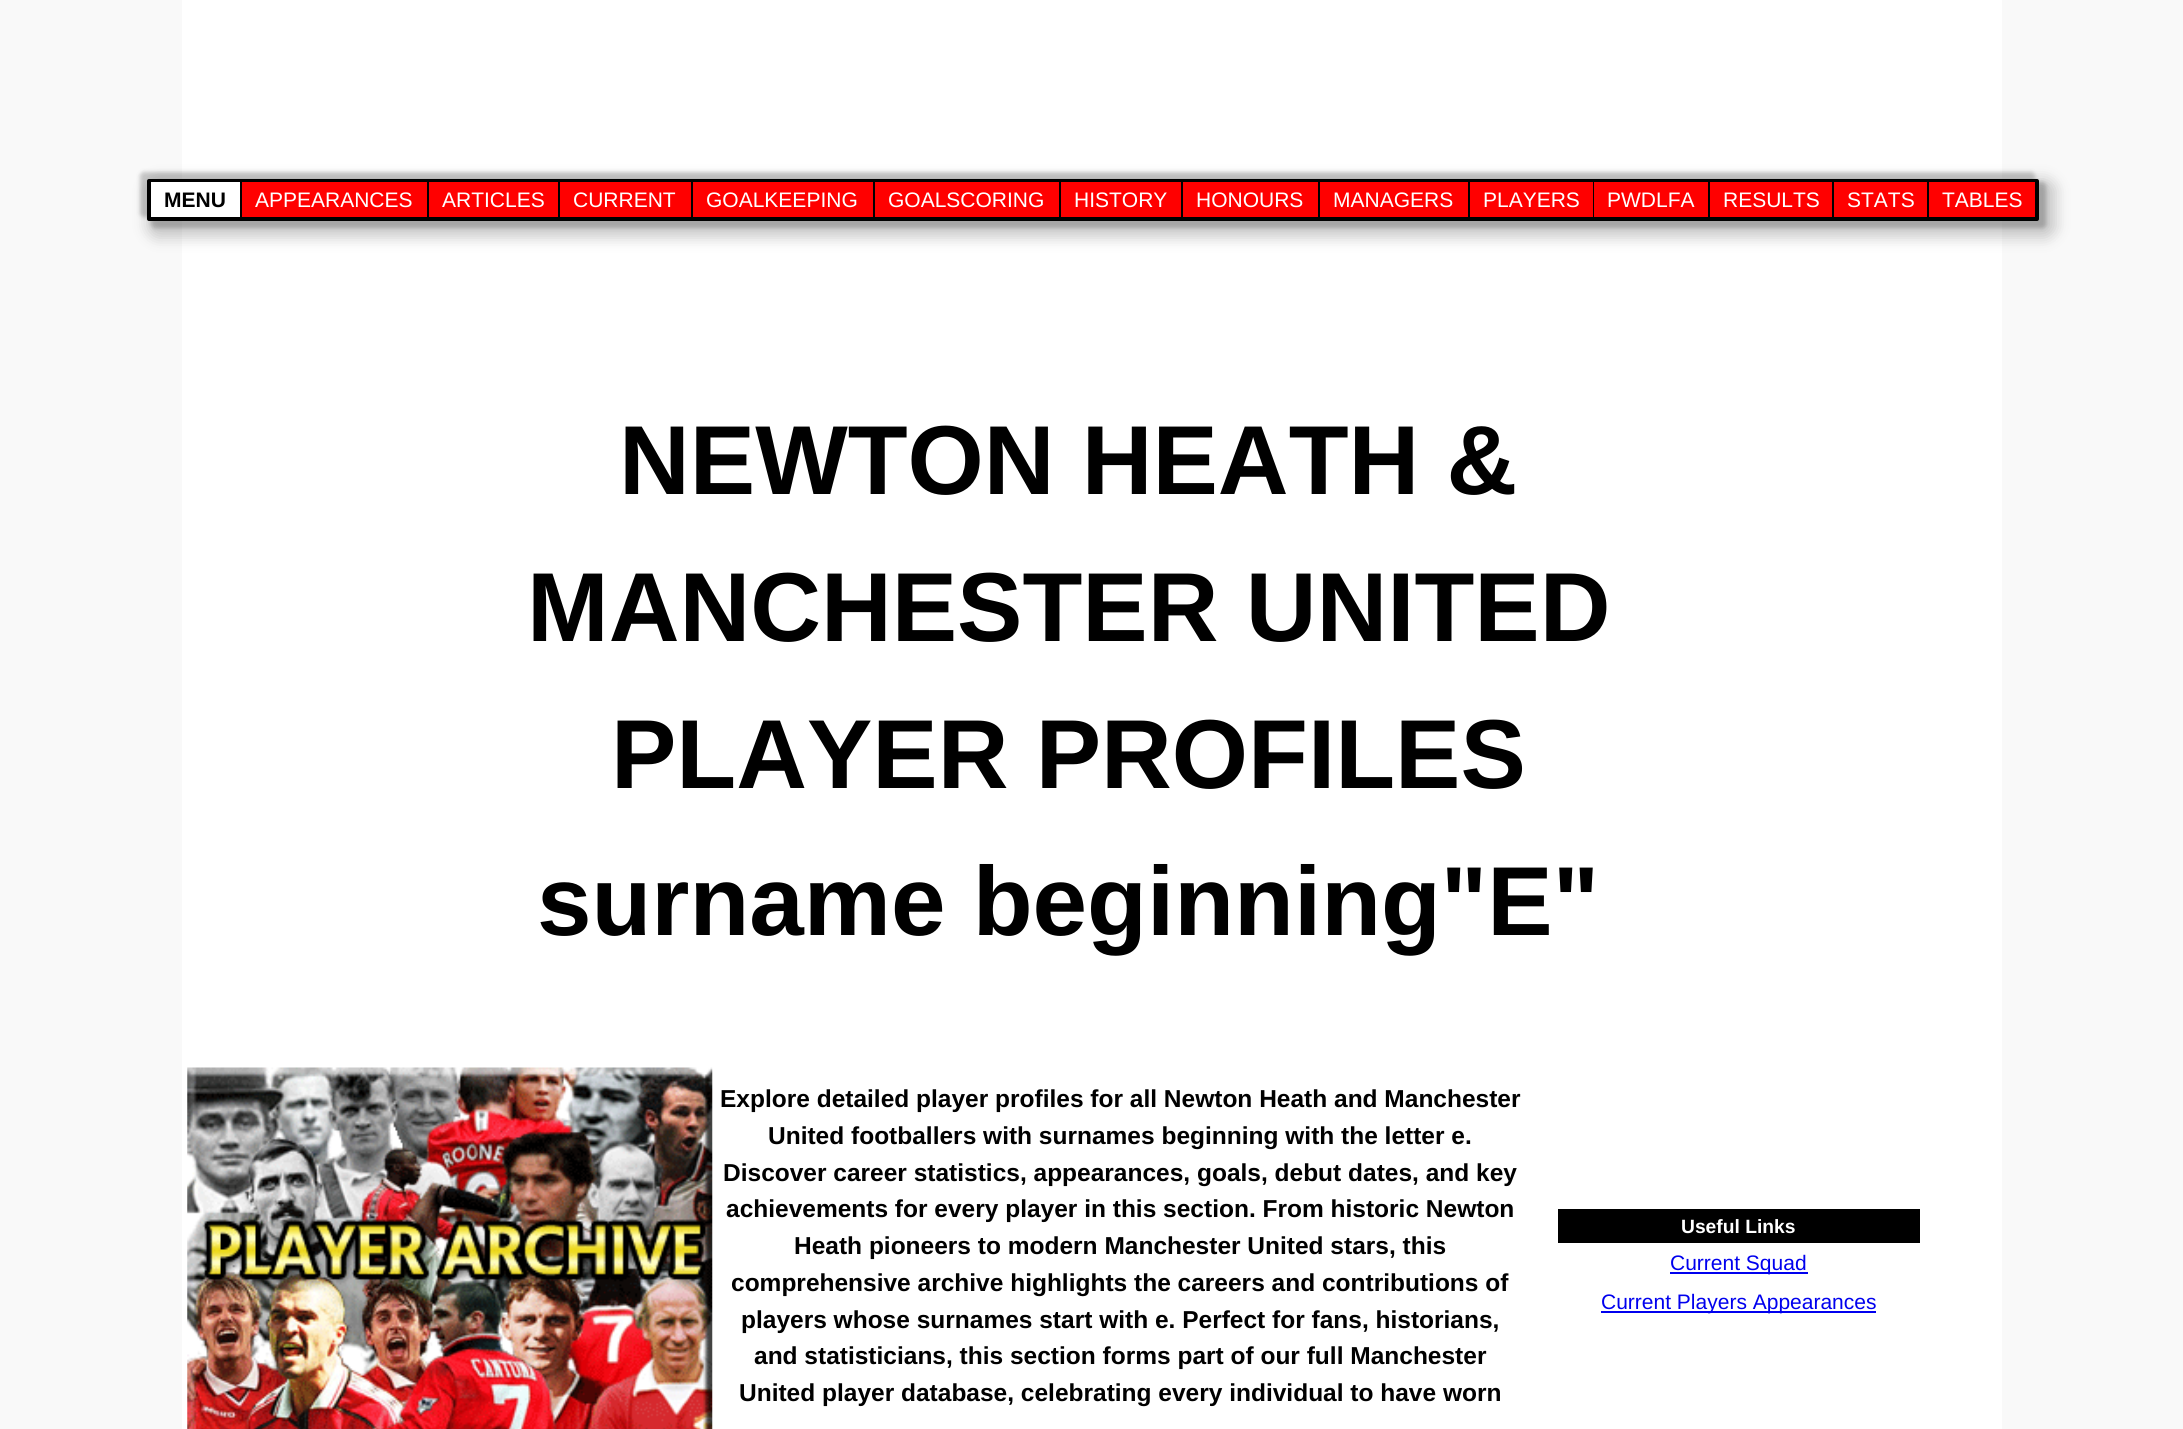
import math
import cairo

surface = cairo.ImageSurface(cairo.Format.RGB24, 2183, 1429)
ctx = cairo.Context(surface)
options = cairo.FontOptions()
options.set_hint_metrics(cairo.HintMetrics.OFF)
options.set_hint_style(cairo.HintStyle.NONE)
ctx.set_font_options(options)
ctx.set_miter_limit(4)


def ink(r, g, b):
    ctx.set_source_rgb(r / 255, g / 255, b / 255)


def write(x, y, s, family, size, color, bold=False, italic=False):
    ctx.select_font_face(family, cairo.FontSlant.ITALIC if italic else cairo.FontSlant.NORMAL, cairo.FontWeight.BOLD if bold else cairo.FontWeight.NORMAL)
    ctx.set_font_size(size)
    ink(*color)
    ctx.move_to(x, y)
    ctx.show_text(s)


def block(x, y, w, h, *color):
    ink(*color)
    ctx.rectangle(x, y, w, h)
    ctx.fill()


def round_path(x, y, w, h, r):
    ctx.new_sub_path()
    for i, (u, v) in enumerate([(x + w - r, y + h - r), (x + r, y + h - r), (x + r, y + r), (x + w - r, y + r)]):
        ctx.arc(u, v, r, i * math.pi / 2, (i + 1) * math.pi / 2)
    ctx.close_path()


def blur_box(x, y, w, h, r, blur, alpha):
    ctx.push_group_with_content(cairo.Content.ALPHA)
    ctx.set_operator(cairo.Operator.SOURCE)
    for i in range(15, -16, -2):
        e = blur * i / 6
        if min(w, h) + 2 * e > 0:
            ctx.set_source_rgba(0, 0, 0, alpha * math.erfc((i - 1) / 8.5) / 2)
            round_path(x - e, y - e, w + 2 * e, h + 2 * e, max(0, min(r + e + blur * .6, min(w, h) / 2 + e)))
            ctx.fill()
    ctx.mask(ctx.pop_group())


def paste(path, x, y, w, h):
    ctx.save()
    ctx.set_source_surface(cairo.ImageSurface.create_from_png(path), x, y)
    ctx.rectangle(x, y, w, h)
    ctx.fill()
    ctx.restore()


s1 = dict(family="Liberation Sans", size=21, color=(0, 0, 0), bold=True)
s2 = dict(family="Liberation Sans", size=21, color=(255, 255, 255))
s3 = dict(family="Liberation Sans", size=98, color=(0, 0, 0), bold=True)
s4 = dict(family="Liberation Sans", size=24.5, color=(0, 0, 0), bold=True)
s5 = dict(family="Liberation Sans", size=19.25, color=(255, 255, 255), bold=True)
s6 = dict(family="Liberation Sans", size=21, color=(0, 0, 238))

ink(249, 249, 249)
ctx.paint()
block(182, 0, 1820, 1429, 255, 255, 255)
ink(48, 48, 48)
blur_box(147, 179, 1909, 59, 11, 7, 0.25)
blur_box(140, 172, 1895, 45, 4, 2, 0.25)
blur_box(151, 182, 1895, 46, 4, 2, 0.25)
ink(0, 0, 0)
round_path(148, 180, 1890, 40, 1)
ctx.fill_preserve()
ctx.stroke()
block(151, 182, 89, 35, 255, 255, 255)
block(242, 182, 185, 35, 255, 0, 0)
block(429, 182, 129, 35, 255, 0, 0)
block(560, 182, 131, 35, 255, 0, 0)
block(693, 182, 180, 35, 255, 0, 0)
block(875, 182, 184, 35, 255, 0, 0)
block(1061, 182, 120, 35, 255, 0, 0)
block(1183, 182, 135, 35, 255, 0, 0)
block(1320, 182, 148, 35, 255, 0, 0)
block(1470, 182, 123, 35, 255, 0, 0)
block(1594, 182, 114, 35, 255, 0, 0)
block(1710, 182, 122, 35, 255, 0, 0)
block(1834, 182, 93, 35, 255, 0, 0)
block(1929, 182, 106, 35, 255, 0, 0)
write(164, 207, "MENU", **s1)
write(255, 207, "APPEARANCES", **s2)
write(442, 207, "ARTICLES", **s2)
write(573, 207, "CURRENT", **s2)
write(706, 207, "GOALKEEPING", **s2)
write(888, 207, "GOALSCORING", **s2)
write(1074, 207, "HISTORY", **s2)
write(1196, 207, "HONOURS", **s2)
write(1333, 207, "MANAGERS", **s2)
write(1483, 207, "PLAYERS", **s2)
write(1607, 207, "PWDLFA", **s2)
write(1723, 207, "RESULTS", **s2)
write(1847, 207, "STATS", **s2)
write(1942, 207, "TABLES", **s2)
write(619, 494, "NEWTON HEATH &", **s3)
write(527, 641, "MANCHESTER UNITED", **s3)
write(611, 788, "PLAYER PROFILES", **s3)
write(537, 935, "surname beginning\"E\"", **s3)
paste("pic1.png", 187, 1067, 526, 362)
write(720, 1107, "Explore detailed player profiles for all Newton Heath and Manchester", **s4)
write(768, 1144, "United footballers with surnames beginning with the letter e.", **s4)
write(723, 1181, "Discover career statistics, appearances, goals, debut dates, and key", **s4)
write(726, 1217, "achievements for every player in this section. From historic Newton", **s4)
write(794, 1254, "Heath pioneers to modern Manchester United stars, this", **s4)
write(731, 1291, "comprehensive archive highlights the careers and contributions of", **s4)
write(741, 1328, "players whose surnames start with e. Perfect for fans, historians,", **s4)
write(754, 1364, "and statisticians, this section forms part of our full Manchester", **s4)
write(739, 1401, "United player database, celebrating every individual to have worn", **s4)
block(1558, 1209, 362, 34, 0, 0, 0)
write(1681, 1233, "Useful Links", **s5)
block(1670, 1272, 138, 2, 0, 0, 238)
write(1670, 1270, "Current Squad", **s6)
block(1601, 1311, 275, 2, 0, 0, 238)
write(1601, 1309, "Current Players Appearances", **s6)
surface.write_to_png("screenshot.png")
